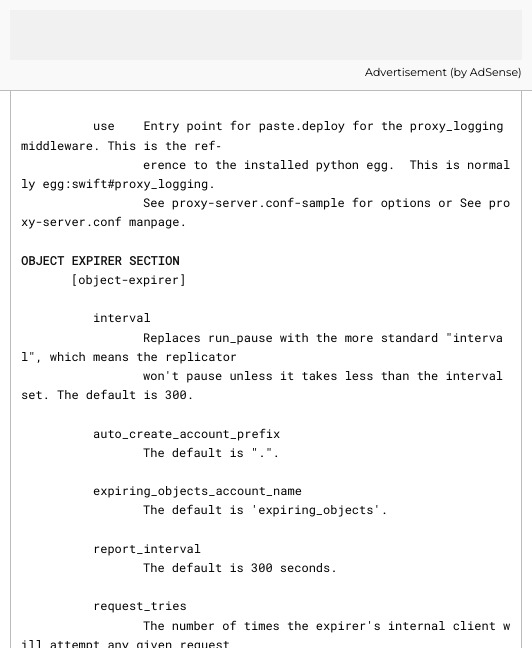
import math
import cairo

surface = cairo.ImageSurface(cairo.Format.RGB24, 532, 648)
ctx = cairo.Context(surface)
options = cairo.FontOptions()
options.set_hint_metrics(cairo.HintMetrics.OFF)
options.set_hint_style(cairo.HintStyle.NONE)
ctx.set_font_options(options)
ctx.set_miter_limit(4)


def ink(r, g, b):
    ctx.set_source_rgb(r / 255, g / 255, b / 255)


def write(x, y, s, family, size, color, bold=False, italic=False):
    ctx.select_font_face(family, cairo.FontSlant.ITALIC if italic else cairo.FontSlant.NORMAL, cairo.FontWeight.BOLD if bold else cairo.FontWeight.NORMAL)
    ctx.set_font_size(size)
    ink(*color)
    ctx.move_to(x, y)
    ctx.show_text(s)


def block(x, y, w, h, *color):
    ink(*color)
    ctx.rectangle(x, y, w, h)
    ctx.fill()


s1 = dict(family="Montserrat Thin", size=11, color=(0, 0, 0))
s2 = dict(family="Roboto Mono", size=12, color=(0, 0, 0))
s3 = dict(family="DejaVu Sans Mono", size=12, color=(0, 0, 0))
s4 = dict(family="Roboto Mono", size=12, color=(17, 17, 17), bold=True)

ink(255, 255, 255)
ctx.paint()
block(0, 0, 532, 90, 249, 249, 249)
block(0, 90, 532, 1, 187, 187, 187)
ctx.rectangle(10.5, -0.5, 511, 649)
ctx.set_line_width(1)
ctx.stroke()
block(10, 0, 512, 90, 249, 249, 249)
block(10, 10, 512, 50, 241, 241, 241)
write(365, 76, "Advertisement (by AdSense)", **s1)
write(93, 130, "use    Entry point for paste.deploy for the proxy_logging", **s2)
write(21, 150, "middleware. This is the ref", **s2)
write(215, 150, "‐", **s3)
write(143, 169, "erence to the installed python egg.  This is normal", **s2)
write(21, 188, "ly egg:swift#proxy_logging.", **s2)
write(143, 207, "See proxy-server.conf-sample for options or See pro", **s2)
write(21, 226, "xy-server.conf manpage.", **s2)
write(21, 265, "OBJECT EXPIRER SECTION", **s4)
write(71, 284, "[object-expirer]", **s2)
write(93, 322, "interval", **s2)
write(143, 342, "Replaces run_pause with the more standard \"interva", **s2)
write(21, 361, "l\", which means the replicator", **s2)
write(143, 380, "won't pause unless it takes less than the interval", **s2)
write(21, 399, "set. The default is 300.", **s2)
write(93, 438, "auto_create_account_prefix", **s2)
write(143, 457, "The default is \".\".", **s2)
write(93, 495, "expiring_objects_account_name", **s2)
write(143, 514, "The default is 'expiring_objects'.", **s2)
write(93, 553, "report_interval", **s2)
write(143, 572, "The default is 300 seconds.", **s2)
write(93, 610, "request_tries", **s2)
write(143, 630, "The number of times the expirer's internal client w", **s2)
write(21, 649, "ill attempt any given request", **s2)
surface.write_to_png("screenshot.png")
